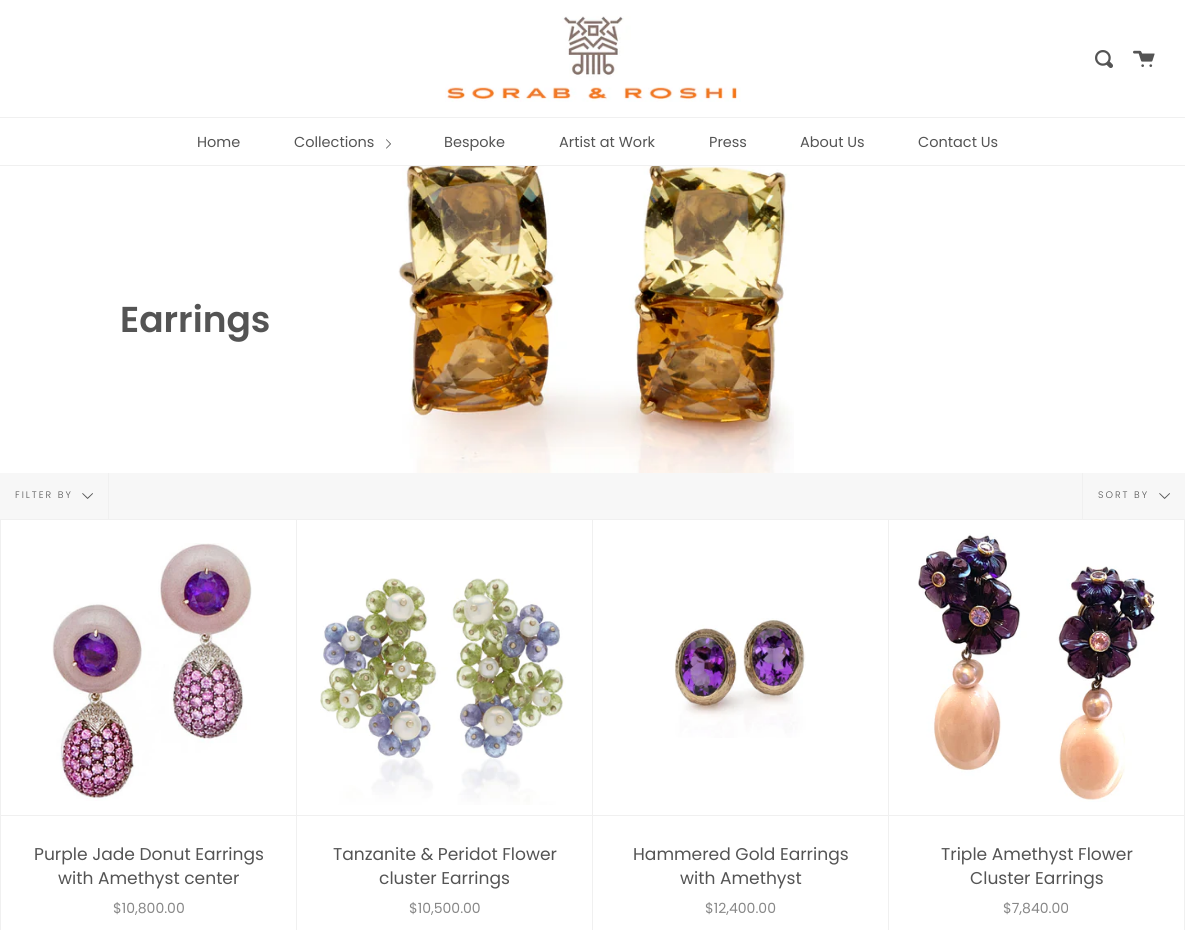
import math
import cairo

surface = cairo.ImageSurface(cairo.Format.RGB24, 1185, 930)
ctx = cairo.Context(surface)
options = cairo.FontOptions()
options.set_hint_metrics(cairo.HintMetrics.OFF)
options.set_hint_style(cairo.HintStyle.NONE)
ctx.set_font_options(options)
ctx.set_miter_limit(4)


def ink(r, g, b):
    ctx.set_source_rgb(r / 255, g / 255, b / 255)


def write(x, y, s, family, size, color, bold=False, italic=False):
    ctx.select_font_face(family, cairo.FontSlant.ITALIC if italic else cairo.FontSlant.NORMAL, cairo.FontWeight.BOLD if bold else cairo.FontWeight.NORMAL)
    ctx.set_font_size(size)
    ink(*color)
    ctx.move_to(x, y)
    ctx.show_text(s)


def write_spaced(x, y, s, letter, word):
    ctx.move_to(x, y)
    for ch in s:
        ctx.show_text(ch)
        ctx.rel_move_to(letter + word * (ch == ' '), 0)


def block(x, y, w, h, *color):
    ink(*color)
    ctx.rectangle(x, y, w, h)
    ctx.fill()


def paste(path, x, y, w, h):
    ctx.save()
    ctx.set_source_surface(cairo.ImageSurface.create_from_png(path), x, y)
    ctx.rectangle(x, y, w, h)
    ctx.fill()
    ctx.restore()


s1 = dict(family="Poppins", size=14.5, color=(84, 84, 84))
s2 = dict(family="Poppins SemiBold", size=36, color=(84, 84, 84))
s3 = dict(family="Poppins", size=17.1, color=(84, 84, 84))
s4 = dict(family="Poppins", size=14, color=(135, 135, 135))

ink(255, 255, 255)
ctx.paint()
paste("pic1.png", 445, 16, 296, 86)
paste("pic2.png", 1095, 50, 18, 18)
paste("pic3.png", 1133, 50, 22, 17)
block(0, 117, 1185, 1, 240, 240, 240)
block(0, 165, 1185, 1, 240, 240, 240)
write(197, 147, "Home", **s1)
write(294, 147, "Collections", **s1)
paste("pic4.png", 386, 139, 5, 10)
write(444, 147, "Bespoke", **s1)
write(559, 147, "Artist at Work", **s1)
write(709, 147, "Press", **s1)
write(800, 147, "About Us", **s1)
write(918, 147, "Contact Us", **s1)
write(120, 332, "Earrings", **s2)
paste("pic5.png", 398, 166, 396, 307)
block(0, 473, 1185, 46, 247, 247, 247)
block(108, 473, 1, 46, 240, 240, 240)
ctx.select_font_face("Poppins Light")
ctx.set_font_size(9.5)
ink(84, 84, 84)
write_spaced(15, 498, "FILTER BY", 2, 0)
paste("pic6.png", 82, 493, 11, 6)
block(1082, 473, 1, 46, 240, 240, 240)
ink(84, 84, 84)
write_spaced(1098, 498, "SORT BY", 2, 0)
paste("pic6.png", 1159, 493, 11, 6)
block(0, 519, 1, 411, 240, 240, 240)
block(1, 519, 1184, 1, 240, 240, 240)
block(296, 519, 1, 411, 240, 240, 240)
block(1, 815, 295, 1, 240, 240, 240)
paste("pic7.png", 52, 543, 200, 258)
write(34, 860, "Purple Jade Donut Earrings", **s3)
write(58, 884, "with Amethyst center", **s3)
write(113, 913, "$10,800.00", **s4)
block(592, 519, 1, 411, 240, 240, 240)
block(297, 815, 295, 1, 240, 240, 240)
paste("pic8.png", 320, 578, 246, 227)
write(333, 860, "Tanzanite & Peridot Flower", **s3)
write(379, 884, "cluster Earrings", **s3)
write(409, 913, "$10,500.00", **s4)
block(888, 519, 1, 411, 240, 240, 240)
block(593, 815, 295, 1, 240, 240, 240)
paste("pic9.png", 674, 618, 132, 120)
write(633, 860, "Hammered Gold Earrings", **s3)
write(680, 884, "with Amethyst", **s3)
write(705, 913, "$12,400.00", **s4)
block(1184, 519, 1, 411, 240, 240, 240)
block(889, 815, 295, 1, 240, 240, 240)
paste("pic10.png", 918, 533, 240, 269)
write(941, 860, "Triple Amethyst Flower", **s3)
write(970, 884, "Cluster Earrings", **s3)
write(1003, 913, "$7,840.00", **s4)
surface.write_to_png("screenshot.png")
